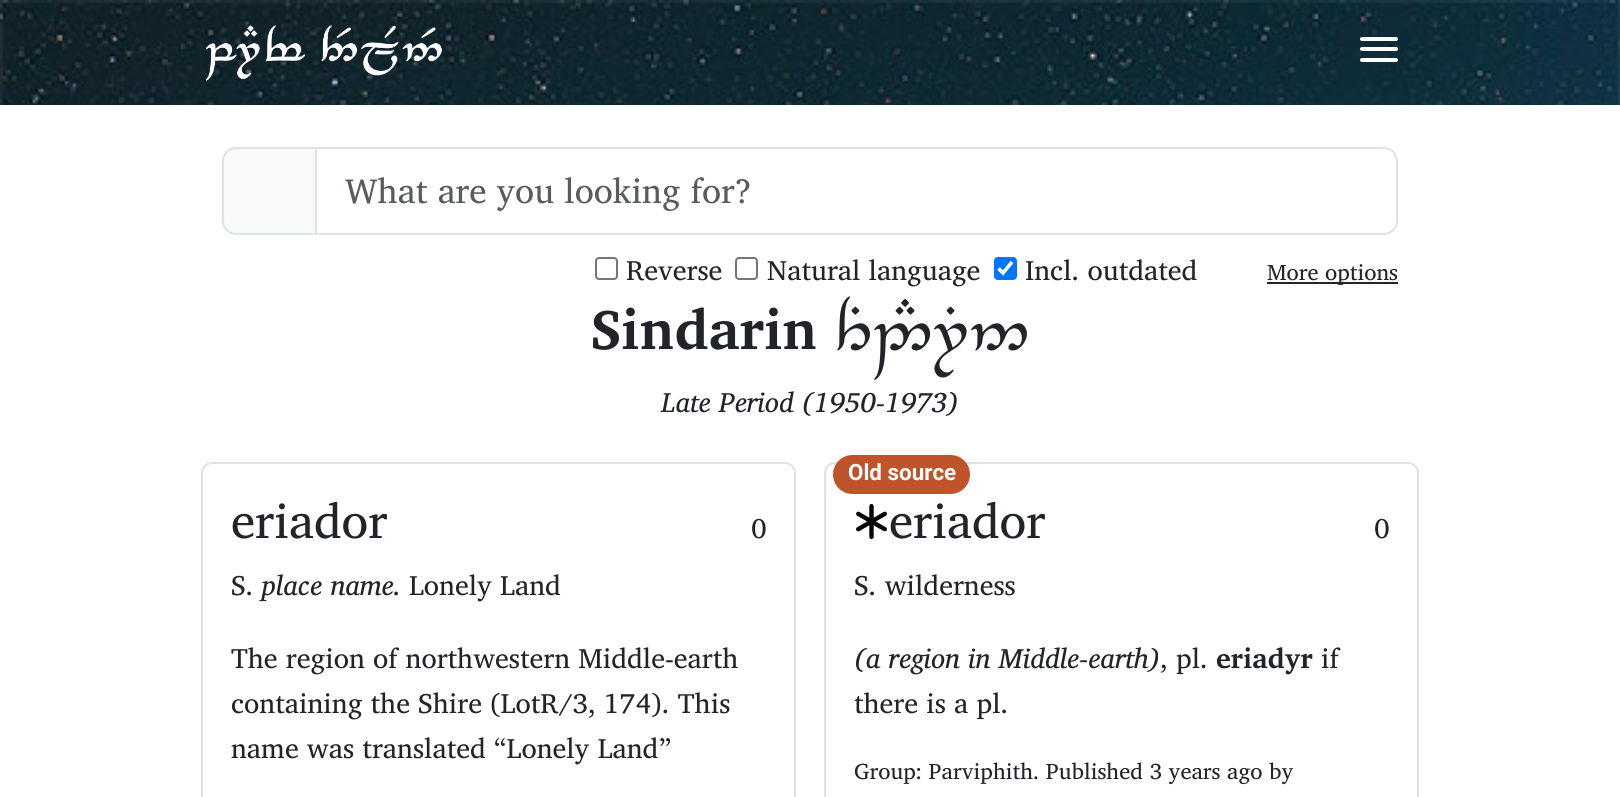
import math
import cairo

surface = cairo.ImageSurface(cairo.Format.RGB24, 1620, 797)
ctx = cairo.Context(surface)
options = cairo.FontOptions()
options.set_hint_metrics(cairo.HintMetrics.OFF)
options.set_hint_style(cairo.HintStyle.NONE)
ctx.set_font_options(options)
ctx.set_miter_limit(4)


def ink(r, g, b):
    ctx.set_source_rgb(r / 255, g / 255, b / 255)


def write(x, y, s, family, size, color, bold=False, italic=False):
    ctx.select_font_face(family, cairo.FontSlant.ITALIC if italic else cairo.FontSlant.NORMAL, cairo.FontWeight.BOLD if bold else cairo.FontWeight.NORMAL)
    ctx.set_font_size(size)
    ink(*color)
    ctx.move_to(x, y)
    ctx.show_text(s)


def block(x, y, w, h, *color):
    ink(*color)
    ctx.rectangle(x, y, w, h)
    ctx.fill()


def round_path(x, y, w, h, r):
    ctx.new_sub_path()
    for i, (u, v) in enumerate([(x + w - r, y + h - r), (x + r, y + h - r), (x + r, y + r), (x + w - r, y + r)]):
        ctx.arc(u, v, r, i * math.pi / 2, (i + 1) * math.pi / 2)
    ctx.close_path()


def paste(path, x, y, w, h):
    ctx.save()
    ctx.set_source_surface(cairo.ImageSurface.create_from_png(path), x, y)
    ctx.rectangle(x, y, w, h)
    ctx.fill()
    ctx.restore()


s1 = dict(family="Charis SIL", size=35, color=(89, 92, 95))
s2 = dict(family="Charis SIL", size=28, color=(33, 37, 41))
s3 = dict(family="Charis SIL", size=22.4, color=(33, 37, 41))
s4 = dict(family="Charis SIL", size=56, color=(33, 37, 41), bold=True)
s5 = dict(family="Charis SIL", size=28, color=(33, 37, 41), italic=True)
s6 = dict(family="Charis SIL", size=49, color=(33, 37, 41))
s7 = dict(family="Roboto", size=22.4, color=(255, 255, 255), bold=True)
s8 = dict(family="Charis SIL", size=28, color=(33, 37, 41), bold=True)

ink(255, 255, 255)
ctx.paint()
paste("pic1.png", 0, 0, 1620, 105)
paste("pic2.png", 205, 25, 237, 56)
ink(255, 255, 255)
round_path(1360, 37, 38, 4, 2)
ctx.fill()
round_path(1360, 47, 38, 4, 2)
ctx.fill()
round_path(1360, 58, 38, 4, 2)
ctx.fill()
ink(248, 249, 250)
ctx.new_path()
ctx.move_to(236, 148)
ctx.line_to(316, 148)
ctx.line_to(316, 234)
ctx.line_to(236, 234)
ctx.curve_to(229, 234, 223, 228, 223, 221)
ctx.line_to(223, 161)
ctx.curve_to(223, 154, 229, 148, 236, 148)
ctx.close_path()
ctx.fill_preserve()
ink(222, 226, 230)
ctx.stroke()
ctx.new_path()
ctx.move_to(316, 148)
ctx.line_to(1384, 148)
ctx.curve_to(1391, 148, 1397, 154, 1397, 161)
ctx.line_to(1397, 221)
ctx.curve_to(1397, 228, 1391, 234, 1384, 234)
ctx.line_to(316, 234)
ctx.close_path()
ctx.stroke()
write(345, 203, "What are you looking for?", **s1)
round_path(596, 258, 21, 21, 3)
ink(118, 118, 118)
ctx.stroke()
write(626, 280, "Reverse", **s2)
round_path(736, 258, 21, 21, 3)
ink(118, 118, 118)
ctx.stroke()
write(767, 280, "Natural language", **s2)
ink(0, 117, 255)
round_path(994, 257, 23, 23, 4)
ctx.fill()
ctx.new_path()
ctx.move_to(998.5, 268.5)
ctx.line_to(1003, 273)
ctx.line_to(1012, 262)
ink(255, 255, 255)
ctx.set_line_width(3.6)
ctx.stroke()
write(1025, 280, "Incl. outdated", **s2)
block(1267, 282, 131, 2, 33, 37, 41)
write(1267, 280, "More options", **s3)
write(591, 349, "Sindarin", **s4)
paste("pic3.png", 837, 296, 190, 84)
write(661, 412, "Late Period (1950-1973)", **s5)
round_path(202, 463, 593, 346, 10)
ink(222, 226, 230)
ctx.set_line_width(2)
ctx.stroke()
write(231, 538, "eriador", **s6)
write(751, 538, "0", **s2)
write(231, 595, "S.", **s2)
write(262, 595, "place name.", **s5)
write(409, 595, "Lonely Land", **s2)
write(231, 668, "The region of northwestern Middle-earth", **s2)
write(231, 713, "containing the Shire (LotR/3, 174). This", **s2)
write(231, 758, "name was translated “Lonely Land”", **s2)
round_path(825, 463, 593, 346, 10)
ink(222, 226, 230)
ctx.stroke()
ink(191, 83, 41)
round_path(833, 455, 137, 39, 19.5)
ctx.fill()
write(848, 480, "Old source", **s7)
paste("pic4.png", 856, 504, 31, 35)
write(889, 538, "eriador", **s6)
write(1374, 538, "0", **s2)
write(854, 595, "S. wilderness", **s2)
write(854, 668, "(a region in Middle-earth)", **s5)
write(1160, 668, ", pl.", **s2)
write(1216, 668, "eriadyr", **s8)
write(1321, 668, "if", **s2)
write(854, 713, "there is a pl.", **s2)
write(854, 779, "Group: Parviphith. Published 3 years ago by", **s3)
surface.write_to_png("screenshot.png")
